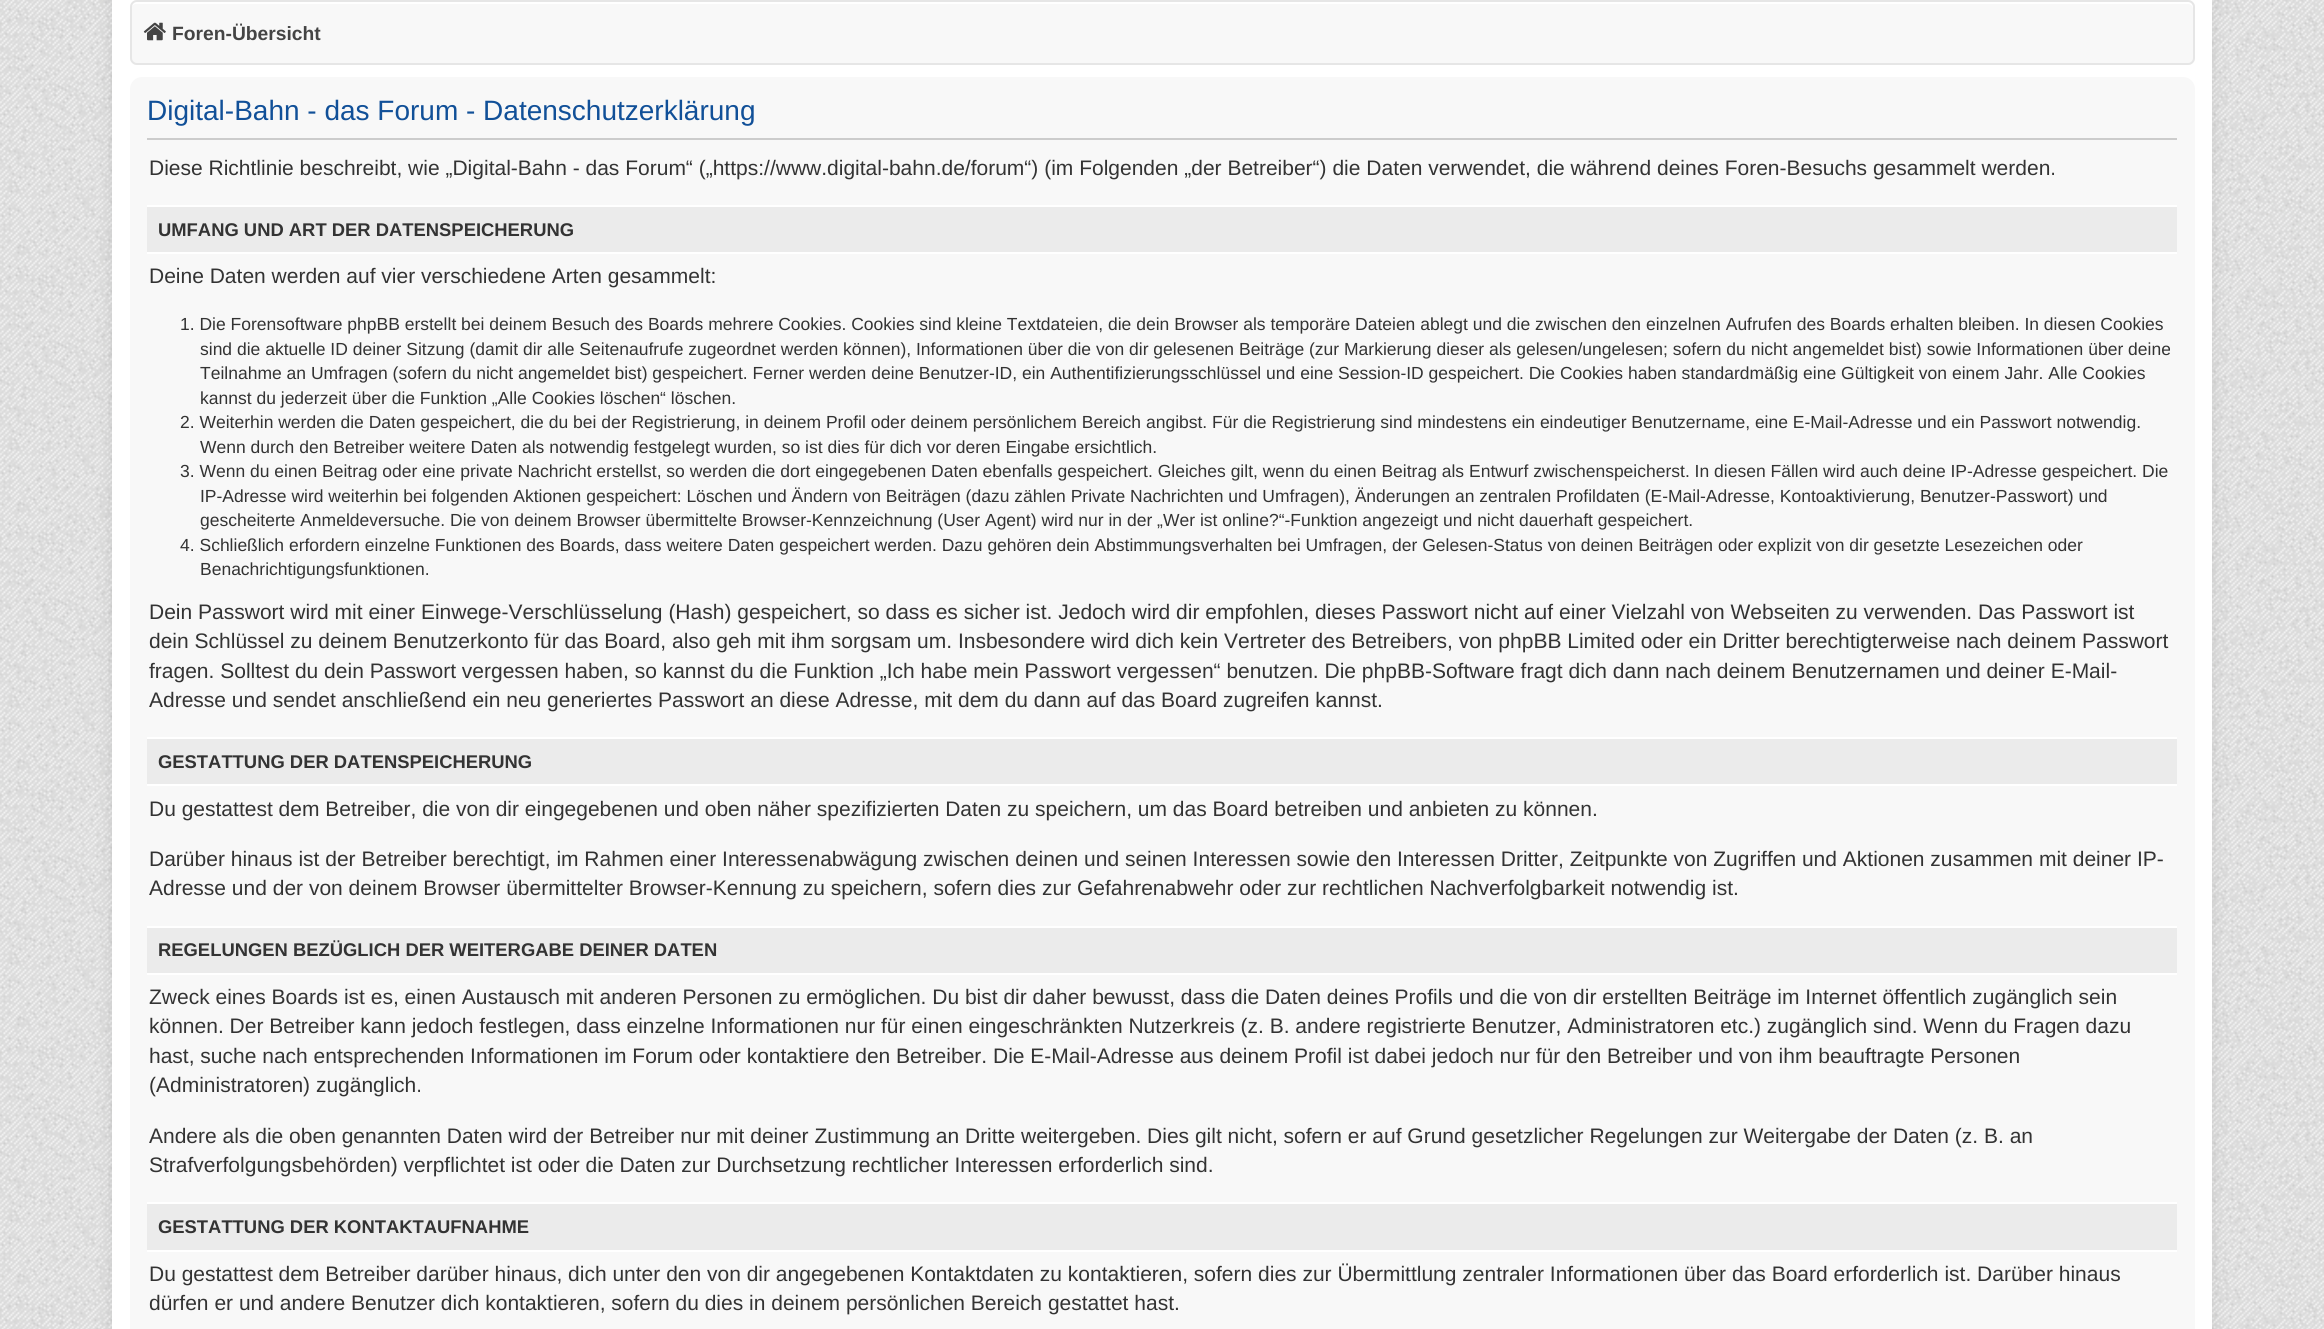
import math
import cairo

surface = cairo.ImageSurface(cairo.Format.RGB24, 2324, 1329)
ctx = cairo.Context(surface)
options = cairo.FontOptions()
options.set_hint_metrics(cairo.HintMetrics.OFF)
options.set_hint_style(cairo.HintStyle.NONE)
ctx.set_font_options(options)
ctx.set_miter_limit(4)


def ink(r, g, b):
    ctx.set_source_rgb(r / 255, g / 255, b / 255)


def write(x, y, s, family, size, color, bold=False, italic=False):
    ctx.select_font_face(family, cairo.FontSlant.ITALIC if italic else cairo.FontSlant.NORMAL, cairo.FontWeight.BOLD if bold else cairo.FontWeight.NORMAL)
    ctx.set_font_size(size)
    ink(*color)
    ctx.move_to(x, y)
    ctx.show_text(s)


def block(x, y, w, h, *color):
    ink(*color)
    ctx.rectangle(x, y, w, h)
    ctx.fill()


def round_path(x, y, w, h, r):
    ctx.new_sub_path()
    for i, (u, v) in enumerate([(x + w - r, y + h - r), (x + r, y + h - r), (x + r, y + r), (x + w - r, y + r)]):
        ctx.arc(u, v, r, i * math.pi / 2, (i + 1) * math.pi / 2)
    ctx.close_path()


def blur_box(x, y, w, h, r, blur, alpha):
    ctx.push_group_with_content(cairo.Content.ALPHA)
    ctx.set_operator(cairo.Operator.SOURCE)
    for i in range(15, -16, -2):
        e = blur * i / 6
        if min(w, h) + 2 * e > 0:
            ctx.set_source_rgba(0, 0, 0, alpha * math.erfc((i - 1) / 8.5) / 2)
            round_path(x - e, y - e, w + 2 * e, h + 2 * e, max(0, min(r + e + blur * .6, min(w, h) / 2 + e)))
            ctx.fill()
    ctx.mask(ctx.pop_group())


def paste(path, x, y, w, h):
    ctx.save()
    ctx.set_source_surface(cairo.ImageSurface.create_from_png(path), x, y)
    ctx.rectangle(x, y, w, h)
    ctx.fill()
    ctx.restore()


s1 = dict(family="Liberation Sans", size=19.25, color=(68, 68, 68), bold=True)
s2 = dict(family="Liberation Sans", size=28, color=(17, 80, 152))
s3 = dict(family="Liberation Sans", size=21, color=(51, 51, 51))
s4 = dict(family="Liberation Sans", size=18.4, color=(51, 51, 51), bold=True)
s5 = dict(family="Liberation Sans", size=17.5, color=(51, 51, 51))

ink(255, 255, 255)
ctx.paint()
paste("pic1.png", 0, 0, 2324, 1329)
ink(0, 0, 0)
blur_box(112, -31, 2100, 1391, 7, 8, 0.1)
block(112, 0, 2100, 1329, 255, 255, 255)
ink(248, 248, 248)
round_path(130, 0, 2065, 65, 7)
ctx.fill()
ink(255, 255, 255)
ctx.new_path()
ctx.move_to(136, 4)
ctx.line_to(2188, 4)
ctx.curve_to(2190, 4, 2193, 6, 2193, 9)
ctx.line_to(2193, 7)
ctx.curve_to(2193, 4, 2191, 2, 2188, 2)
ctx.line_to(136, 2)
ctx.curve_to(133, 2, 131, 4, 131, 7)
ctx.line_to(131, 9)
ctx.curve_to(131, 6, 134, 4, 136, 4)
ctx.close_path()
ctx.fill()
round_path(131, 1, 2063, 63, 6)
ink(230, 230, 230)
ctx.stroke()
paste("pic2.png", 143, 22, 23, 19)
write(172, 40, "Foren-Übersicht", **s1)
ink(248, 248, 248)
round_path(130, 77, 2065, 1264, 12)
ctx.fill()
block(147, 138, 2030, 2, 204, 204, 204)
write(147, 120, "Digital-Bahn - das Forum - Datenschutzerklärung", **s2)
write(149, 175, "Diese Richtlinie beschreibt, wie „Digital-Bahn - das Forum“ („https://www.digital-bahn.de/forum“) (im Folgenden „der Betreiber“) die Daten verwendet, die während deines Foren-Besuchs gesammelt werden.", **s3)
block(147, 207, 2030, 45, 235, 235, 235)
block(147, 205, 2030, 2, 255, 255, 255)
block(147, 252, 2030, 2, 255, 255, 255)
write(158, 236, "UMFANG UND ART DER DATENSPEICHERUNG", **s4)
write(149, 283, "Deine Daten werden auf vier verschiedene Arten gesammelt:", **s3)
write(180, 330, "1. Die Forensoftware phpBB erstellt bei deinem Besuch des Boards mehrere Cookies. Cookies sind kleine Textdateien, die dein Browser als temporäre Dateien ablegt und die zwischen den einzelnen Aufrufen des Boards erhalten bleiben. In diesen Cookies", **s5)
write(200, 355, "sind die aktuelle ID deiner Sitzung (damit dir alle Seitenaufrufe zugeordnet werden können), Informationen über die von dir gelesenen Beiträge (zur Markierung dieser als gelesen/ungelesen; sofern du nicht angemeldet bist) sowie Informationen über deine", **s5)
write(200, 379, "Teilnahme an Umfragen (sofern du nicht angemeldet bist) gespeichert. Ferner werden deine Benutzer-ID, ein Authentifizierungsschlüssel und eine Session-ID gespeichert. Die Cookies haben standardmäßig eine Gültigkeit von einem Jahr. Alle Cookies", **s5)
write(200, 404, "kannst du jederzeit über die Funktion „Alle Cookies löschen“ löschen.", **s5)
write(180, 428, "2. Weiterhin werden die Daten gespeichert, die du bei der Registrierung, in deinem Profil oder deinem persönlichem Bereich angibst. Für die Registrierung sind mindestens ein eindeutiger Benutzername, eine E-Mail-Adresse und ein Passwort notwendig.", **s5)
write(200, 453, "Wenn durch den Betreiber weitere Daten als notwendig festgelegt wurden, so ist dies für dich vor deren Eingabe ersichtlich.", **s5)
write(180, 477, "3. Wenn du einen Beitrag oder eine private Nachricht erstellst, so werden die dort eingegebenen Daten ebenfalls gespeichert. Gleiches gilt, wenn du einen Beitrag als Entwurf zwischenspeicherst. In diesen Fällen wird auch deine IP-Adresse gespeichert. Die", **s5)
write(200, 502, "IP-Adresse wird weiterhin bei folgenden Aktionen gespeichert: Löschen und Ändern von Beiträgen (dazu zählen Private Nachrichten und Umfragen), Änderungen an zentralen Profildaten (E-Mail-Adresse, Kontoaktivierung, Benutzer-Passwort) und", **s5)
write(200, 526, "gescheiterte Anmeldeversuche. Die von deinem Browser übermittelte Browser-Kennzeichnung (User Agent) wird nur in der „Wer ist online?“-Funktion angezeigt und nicht dauerhaft gespeichert.", **s5)
write(180, 551, "4. Schließlich erfordern einzelne Funktionen des Boards, dass weitere Daten gespeichert werden. Dazu gehören dein Abstimmungsverhalten bei Umfragen, der Gelesen-Status von deinen Beiträgen oder explizit von dir gesetzte Lesezeichen oder", **s5)
write(200, 575, "Benachrichtigungsfunktionen.", **s5)
write(149, 619, "Dein Passwort wird mit einer Einwege-Verschlüsselung (Hash) gespeichert, so dass es sicher ist. Jedoch wird dir empfohlen, dieses Passwort nicht auf einer Vielzahl von Webseiten zu verwenden. Das Passwort ist", **s3)
write(149, 648, "dein Schlüssel zu deinem Benutzerkonto für das Board, also geh mit ihm sorgsam um. Insbesondere wird dich kein Vertreter des Betreibers, von phpBB Limited oder ein Dritter berechtigterweise nach deinem Passwort", **s3)
write(149, 678, "fragen. Solltest du dein Passwort vergessen haben, so kannst du die Funktion „Ich habe mein Passwort vergessen“ benutzen. Die phpBB-Software fragt dich dann nach deinem Benutzernamen und deiner E-Mail-", **s3)
write(149, 707, "Adresse und sendet anschließend ein neu generiertes Passwort an diese Adresse, mit dem du dann auf das Board zugreifen kannst.", **s3)
block(147, 739, 2030, 45, 235, 235, 235)
block(147, 737, 2030, 2, 255, 255, 255)
block(147, 784, 2030, 2, 255, 255, 255)
write(158, 768, "GESTATTUNG DER DATENSPEICHERUNG", **s4)
write(149, 816, "Du gestattest dem Betreiber, die von dir eingegebenen und oben näher spezifizierten Daten zu speichern, um das Board betreiben und anbieten zu können.", **s3)
write(149, 866, "Darüber hinaus ist der Betreiber berechtigt, im Rahmen einer Interessenabwägung zwischen deinen und seinen Interessen sowie den Interessen Dritter, Zeitpunkte von Zugriffen und Aktionen zusammen mit deiner IP-", **s3)
write(149, 895, "Adresse und der von deinem Browser übermittelter Browser-Kennung zu speichern, sofern dies zur Gefahrenabwehr oder zur rechtlichen Nachverfolgbarkeit notwendig ist.", **s3)
block(147, 928, 2030, 45, 235, 235, 235)
block(147, 926, 2030, 2, 255, 255, 255)
block(147, 973, 2030, 2, 255, 255, 255)
write(158, 956, "REGELUNGEN BEZÜGLICH DER WEITERGABE DEINER DATEN", **s4)
write(149, 1004, "Zweck eines Boards ist es, einen Austausch mit anderen Personen zu ermöglichen. Du bist dir daher bewusst, dass die Daten deines Profils und die von dir erstellten Beiträge im Internet öffentlich zugänglich sein", **s3)
write(149, 1033, "können. Der Betreiber kann jedoch festlegen, dass einzelne Informationen nur für einen eingeschränkten Nutzerkreis (z. B. andere registrierte Benutzer, Administratoren etc.) zugänglich sind. Wenn du Fragen dazu", **s3)
write(149, 1063, "hast, suche nach entsprechenden Informationen im Forum oder kontaktiere den Betreiber. Die E-Mail-Adresse aus deinem Profil ist dabei jedoch nur für den Betreiber und von ihm beauftragte Personen", **s3)
write(149, 1092, "(Administratoren) zugänglich.", **s3)
write(149, 1143, "Andere als die oben genannten Daten wird der Betreiber nur mit deiner Zustimmung an Dritte weitergeben. Dies gilt nicht, sofern er auf Grund gesetzlicher Regelungen zur Weitergabe der Daten (z. B. an", **s3)
write(149, 1172, "Strafverfolgungsbehörden) verpflichtet ist oder die Daten zur Durchsetzung rechtlicher Interessen erforderlich sind.", **s3)
block(147, 1204, 2030, 46, 235, 235, 235)
block(147, 1202, 2030, 2, 255, 255, 255)
block(147, 1250, 2030, 2, 255, 255, 255)
write(158, 1233, "GESTATTUNG DER KONTAKTAUFNAHME", **s4)
write(149, 1281, "Du gestattest dem Betreiber darüber hinaus, dich unter den von dir angegebenen Kontaktdaten zu kontaktieren, sofern dies zur Übermittlung zentraler Informationen über das Board erforderlich ist. Darüber hinaus", **s3)
write(149, 1310, "dürfen er und andere Benutzer dich kontaktieren, sofern du dies in deinem persönlichen Bereich gestattet hast.", **s3)
surface.write_to_png("screenshot.png")
